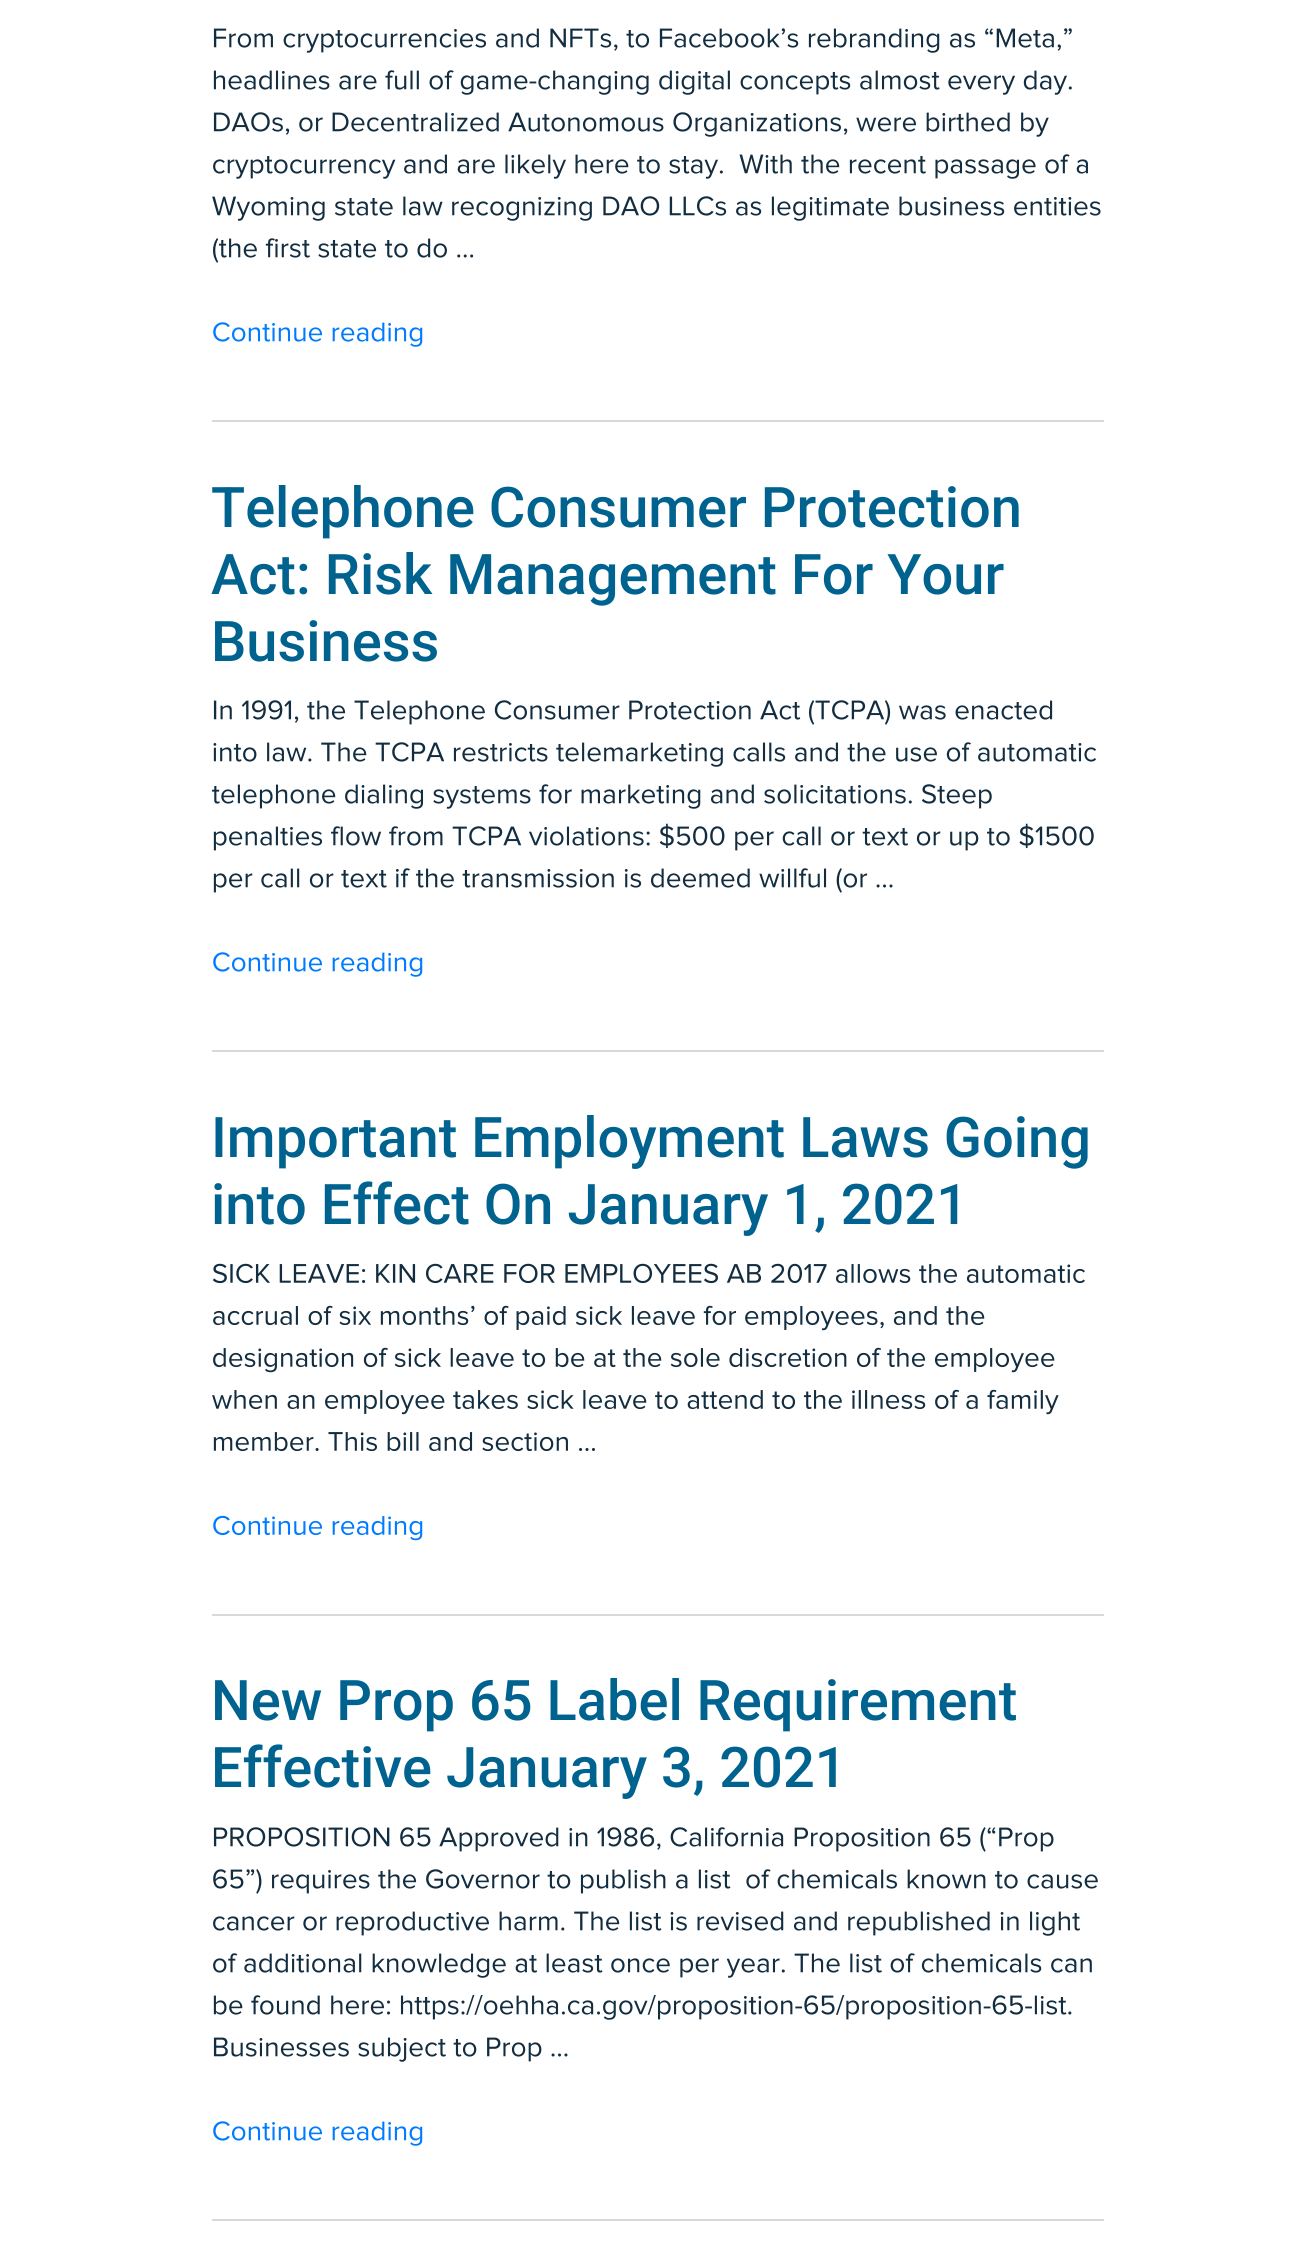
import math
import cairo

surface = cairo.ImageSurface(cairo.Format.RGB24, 1314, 2244)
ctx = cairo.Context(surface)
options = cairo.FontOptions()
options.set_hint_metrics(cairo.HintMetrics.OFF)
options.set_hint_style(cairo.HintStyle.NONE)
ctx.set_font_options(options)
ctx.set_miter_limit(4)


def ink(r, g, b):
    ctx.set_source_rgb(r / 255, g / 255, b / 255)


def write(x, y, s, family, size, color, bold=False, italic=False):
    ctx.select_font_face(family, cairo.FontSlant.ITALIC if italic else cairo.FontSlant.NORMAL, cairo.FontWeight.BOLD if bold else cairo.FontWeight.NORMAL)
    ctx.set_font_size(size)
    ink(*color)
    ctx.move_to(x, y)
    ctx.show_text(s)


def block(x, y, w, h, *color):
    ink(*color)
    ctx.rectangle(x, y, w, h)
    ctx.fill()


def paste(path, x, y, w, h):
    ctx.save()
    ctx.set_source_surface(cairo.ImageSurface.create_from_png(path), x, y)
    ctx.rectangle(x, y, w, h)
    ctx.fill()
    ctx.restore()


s1 = dict(family="Roboto Medium", size=56, color=(0, 99, 143))

ink(255, 255, 255)
ctx.paint()
block(212, 420, 892, 2, 217, 217, 217)
paste("pic1.png", 213, 28, 859, 25)
paste("pic2.png", 213, 70, 859, 25)
paste("pic3.png", 213, 112, 836, 25)
paste("pic4.png", 213, 154, 875, 25)
paste("pic5.png", 212, 196, 889, 25)
paste("pic6.png", 213, 238, 261, 25)
paste("pic7.png", 213, 322, 210, 25)
block(212, 1050, 892, 2, 217, 217, 217)
write(211, 527, "Telephone Consumer Protection", **s1)
write(211, 594, "Act: Risk Management For Your", **s1)
write(211, 661, "Business", **s1)
paste("pic8.png", 213, 700, 840, 25)
paste("pic9.png", 213, 742, 883, 25)
paste("pic10.png", 212, 784, 780, 25)
paste("pic11.png", 213, 823, 881, 28)
paste("pic12.png", 213, 868, 680, 25)
paste("pic7.png", 213, 952, 210, 25)
block(212, 1614, 892, 2, 217, 217, 217)
write(211, 1157, "Important Employment Laws Going", **s1)
write(211, 1224, "into Effect On January 1, 2021", **s1)
paste("pic13.png", 212, 1263, 873, 21)
paste("pic14.png", 213, 1305, 772, 26)
paste("pic15.png", 213, 1347, 842, 26)
paste("pic16.png", 212, 1389, 847, 26)
paste("pic17.png", 213, 1432, 382, 20)
paste("pic18.png", 213, 1515, 210, 26)
block(212, 2219, 892, 2, 217, 217, 217)
write(211, 1720, "New Prop 65 Label Requirement", **s1)
write(211, 1787, "Effective January 3, 2021", **s1)
paste("pic19.png", 213, 1827, 841, 25)
paste("pic20.png", 213, 1869, 885, 25)
paste("pic21.png", 213, 1911, 867, 25)
paste("pic22.png", 213, 1953, 879, 25)
paste("pic23.png", 213, 1995, 859, 25)
paste("pic24.png", 213, 2037, 355, 25)
paste("pic7.png", 213, 2121, 210, 25)
surface.write_to_png("screenshot.png")
